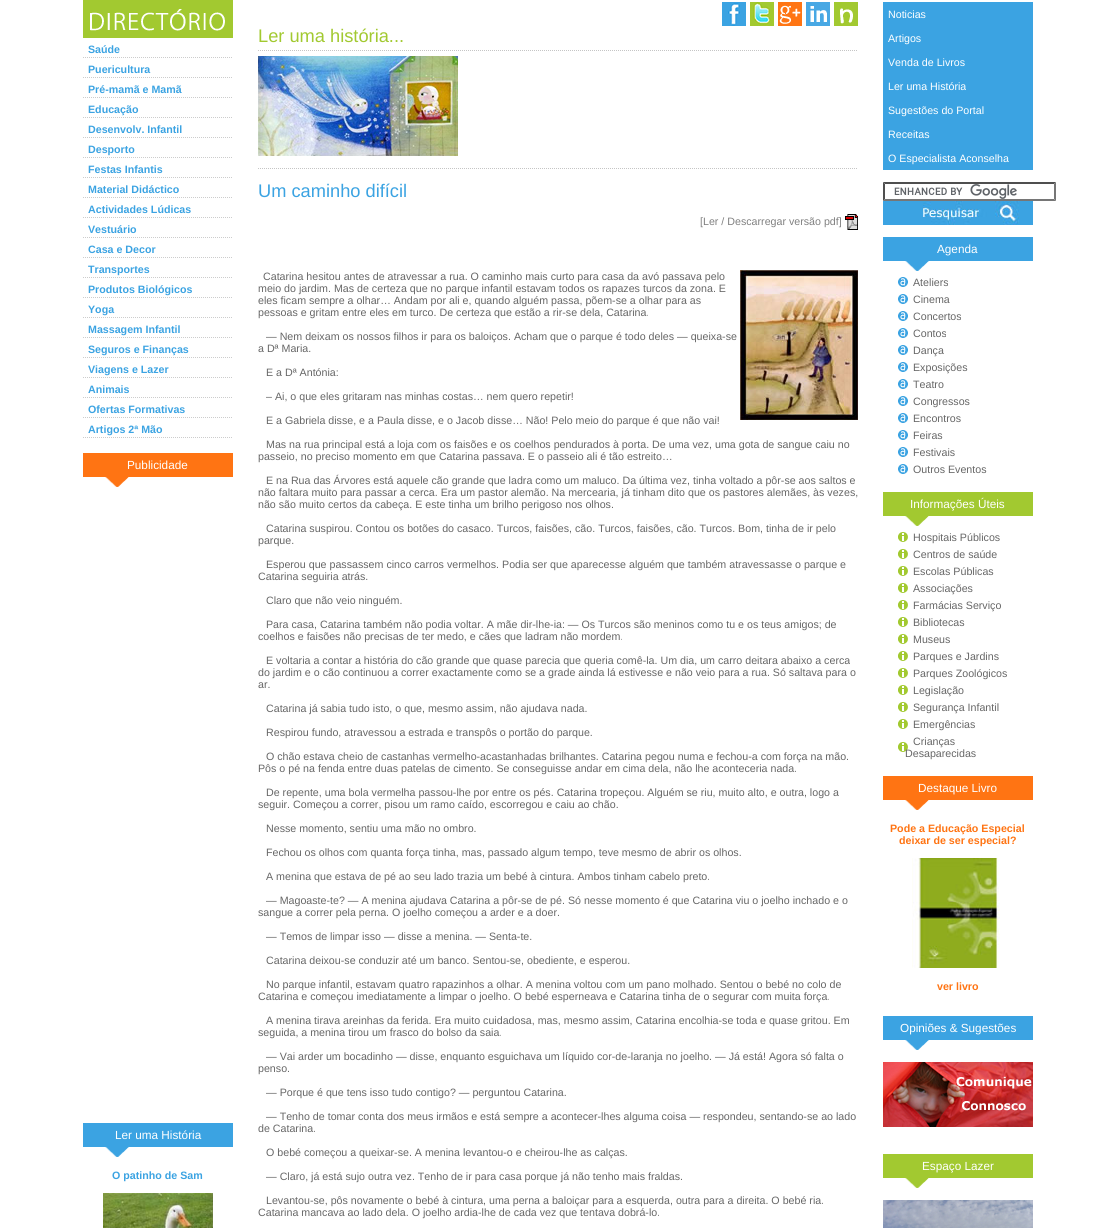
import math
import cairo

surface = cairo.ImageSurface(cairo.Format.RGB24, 1115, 1228)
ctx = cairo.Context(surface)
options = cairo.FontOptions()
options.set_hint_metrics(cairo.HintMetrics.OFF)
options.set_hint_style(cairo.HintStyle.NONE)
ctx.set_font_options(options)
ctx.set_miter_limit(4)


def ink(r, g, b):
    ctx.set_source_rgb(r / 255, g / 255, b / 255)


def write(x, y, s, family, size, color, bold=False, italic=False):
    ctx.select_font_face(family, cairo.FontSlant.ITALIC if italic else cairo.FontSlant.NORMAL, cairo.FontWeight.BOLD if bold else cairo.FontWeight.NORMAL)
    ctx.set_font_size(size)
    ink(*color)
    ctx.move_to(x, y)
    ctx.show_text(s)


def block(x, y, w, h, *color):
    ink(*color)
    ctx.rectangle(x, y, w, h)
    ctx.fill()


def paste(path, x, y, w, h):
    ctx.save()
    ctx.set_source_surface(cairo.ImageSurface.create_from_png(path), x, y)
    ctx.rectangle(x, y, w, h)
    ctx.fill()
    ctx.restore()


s1 = dict(family="Liberation Sans", size=10.67, color=(59, 163, 226), bold=True)
s2 = dict(family="Liberation Sans", size=11.75, color=(255, 255, 255))
s3 = dict(family="Liberation Sans", size=18.25, color=(162, 201, 48))
s4 = dict(family="Liberation Sans", size=18.25, color=(59, 163, 226))
s5 = dict(family="Liberation Sans", size=10.67, color=(128, 128, 128))
s6 = dict(family="Liberation Sans", size=10.67, color=(102, 102, 102))
s7 = dict(family="Liberation Sans", size=10.67, color=(255, 255, 255))
s8 = dict(family="Liberation Sans", size=10.67, color=(255, 116, 19), bold=True)

ink(255, 255, 255)
ctx.paint()
paste("pic1.png", 83, 0, 150, 38)
ctx.new_path()
ctx.move_to(83, 57.5)
ctx.line_to(233, 57.5)
ink(204, 204, 204)
ctx.set_line_width(1)
ctx.set_dash([1, 1])
ctx.stroke()
write(88, 53, "Saúde", **s1)
ctx.new_path()
ctx.move_to(83, 77.5)
ctx.line_to(233, 77.5)
ink(204, 204, 204)
ctx.stroke()
write(88, 73, "Puericultura", **s1)
ctx.new_path()
ctx.move_to(83, 97.5)
ctx.line_to(233, 97.5)
ink(204, 204, 204)
ctx.stroke()
write(88, 93, "Pré-mamã e Mamã", **s1)
ctx.new_path()
ctx.move_to(83, 117.5)
ctx.line_to(233, 117.5)
ink(204, 204, 204)
ctx.stroke()
write(88, 113, "Educação", **s1)
ctx.new_path()
ctx.move_to(83, 137.5)
ctx.line_to(233, 137.5)
ink(204, 204, 204)
ctx.stroke()
write(88, 133, "Desenvolv. Infantil", **s1)
ctx.new_path()
ctx.move_to(83, 157.5)
ctx.line_to(233, 157.5)
ink(204, 204, 204)
ctx.stroke()
write(88, 153, "Desporto", **s1)
ctx.new_path()
ctx.move_to(83, 177.5)
ctx.line_to(233, 177.5)
ink(204, 204, 204)
ctx.stroke()
write(88, 173, "Festas Infantis", **s1)
ctx.new_path()
ctx.move_to(83, 197.5)
ctx.line_to(233, 197.5)
ink(204, 204, 204)
ctx.stroke()
write(88, 193, "Material Didáctico", **s1)
ctx.new_path()
ctx.move_to(83, 217.5)
ctx.line_to(233, 217.5)
ink(204, 204, 204)
ctx.stroke()
write(88, 213, "Actividades Lúdicas", **s1)
ctx.new_path()
ctx.move_to(83, 237.5)
ctx.line_to(233, 237.5)
ink(204, 204, 204)
ctx.stroke()
write(88, 233, "Vestuário", **s1)
ctx.new_path()
ctx.move_to(83, 257.5)
ctx.line_to(233, 257.5)
ink(204, 204, 204)
ctx.stroke()
write(88, 253, "Casa e Decor", **s1)
ctx.new_path()
ctx.move_to(83, 277.5)
ctx.line_to(233, 277.5)
ink(204, 204, 204)
ctx.stroke()
write(88, 273, "Transportes", **s1)
ctx.new_path()
ctx.move_to(83, 297.5)
ctx.line_to(233, 297.5)
ink(204, 204, 204)
ctx.stroke()
write(88, 293, "Produtos Biológicos", **s1)
ctx.new_path()
ctx.move_to(83, 317.5)
ctx.line_to(233, 317.5)
ink(204, 204, 204)
ctx.stroke()
write(88, 313, "Yoga", **s1)
ctx.new_path()
ctx.move_to(83, 337.5)
ctx.line_to(233, 337.5)
ink(204, 204, 204)
ctx.stroke()
write(88, 333, "Massagem Infantil", **s1)
ctx.new_path()
ctx.move_to(83, 357.5)
ctx.line_to(233, 357.5)
ink(204, 204, 204)
ctx.stroke()
write(88, 353, "Seguros e Finanças", **s1)
ctx.new_path()
ctx.move_to(83, 377.5)
ctx.line_to(233, 377.5)
ink(204, 204, 204)
ctx.stroke()
write(88, 373, "Viagens e Lazer", **s1)
ctx.new_path()
ctx.move_to(83, 397.5)
ctx.line_to(233, 397.5)
ink(204, 204, 204)
ctx.stroke()
write(88, 393, "Animais", **s1)
ctx.new_path()
ctx.move_to(83, 417.5)
ctx.line_to(233, 417.5)
ink(204, 204, 204)
ctx.stroke()
write(88, 413, "Ofertas Formativas", **s1)
ctx.new_path()
ctx.move_to(83, 437.5)
ctx.line_to(233, 437.5)
ink(204, 204, 204)
ctx.stroke()
write(88, 433, "Artigos 2ª Mão", **s1)
block(83, 453, 150, 24, 255, 116, 19)
write(127, 469, "Publicidade", **s2)
paste("pic2.png", 105, 477, 24, 10)
block(83, 1123, 150, 24, 59, 163, 226)
write(115, 1139, "Ler uma História", **s2)
paste("pic3.png", 105, 1147, 24, 10)
write(112, 1179, "O patinho de Sam", **s1)
paste("pic4.png", 103, 1193, 110, 35)
paste("pic5.png", 722, 2, 24, 24)
paste("pic6.png", 750, 2, 24, 24)
paste("pic7.png", 778, 2, 24, 24)
paste("pic8.png", 806, 2, 24, 24)
paste("pic9.png", 834, 2, 24, 24)
ctx.new_path()
ctx.move_to(258, 50.5)
ctx.line_to(858, 50.5)
ink(197, 197, 197)
ctx.stroke()
write(258, 42, "Ler uma história...", **s3)
ctx.new_path()
ctx.move_to(258, 168.5)
ctx.line_to(858, 168.5)
ink(197, 197, 197)
ctx.stroke()
paste("pic10.png", 258, 56, 200, 100)
write(258, 197, "Um caminho difícil", **s4)
write(700, 225, "[Ler / Descarregar versão pdf]", **s5)
paste("pic11.png", 845, 214, 13, 16)
paste("pic12.png", 740, 270, 118, 150)
write(263, 280, "Catarina hesitou antes de atravessar a rua. O caminho mais curto para casa da avó passava pelo", **s6)
write(258, 292, "meio do jardim. Mas de certeza que no parque infantil estavam todos os rapazes turcos da zona. E", **s6)
write(258, 304, "eles ficam sempre a olhar… Andam por ali e, quando alguém passa, põem-se a olhar para as", **s6)
write(258, 316, "pessoas e gritam entre eles em turco. De certeza que estão a rir-se dela, Catarina.", **s6)
write(266, 340, "— Nem deixam os nossos filhos ir para os baloiços. Acham que o parque é todo deles — queixa-se", **s6)
write(258, 352, "a Dª Maria.", **s6)
write(266, 376, "E a Dª Antónia:", **s6)
write(266, 400, "– Ai, o que eles gritaram nas minhas costas… nem quero repetir!", **s6)
write(266, 424, "E a Gabriela disse, e a Paula disse, e o Jacob disse… Não! Pelo meio do parque é que não vai!", **s6)
write(266, 448, "Mas na rua principal está a loja com os faisões e os coelhos pendurados à porta. De uma vez, uma gota de sangue caiu no", **s6)
write(258, 460, "passeio, no preciso momento em que Catarina passava. E o passeio ali é tão estreito…", **s6)
write(266, 484, "E na Rua das Árvores está aquele cão grande que ladra como um maluco. Da última vez, tinha voltado a pôr-se aos saltos e", **s6)
write(258, 496, "não faltara muito para passar a cerca. Era um pastor alemão. Na mercearia, já tinham dito que os pastores alemães, às vezes,", **s6)
write(258, 508, "não são muito certos da cabeça. E este tinha um brilho perigoso nos olhos.", **s6)
write(266, 532, "Catarina suspirou. Contou os botões do casaco. Turcos, faisões, cão. Turcos, faisões, cão. Turcos. Bom, tinha de ir pelo", **s6)
write(258, 544, "parque.", **s6)
write(266, 568, "Esperou que passassem cinco carros vermelhos. Podia ser que aparecesse alguém que também atravessasse o parque e", **s6)
write(258, 580, "Catarina seguiria atrás.", **s6)
write(266, 604, "Claro que não veio ninguém.", **s6)
write(266, 628, "Para casa, Catarina também não podia voltar. A mãe dir-lhe-ia: — Os Turcos são meninos como tu e os teus amigos; de", **s6)
write(258, 640, "coelhos e faisões não precisas de ter medo, e cães que ladram não mordem.", **s6)
write(266, 664, "E voltaria a contar a história do cão grande que quase parecia que queria comê-la. Um dia, um carro deitara abaixo a cerca", **s6)
write(258, 676, "do jardim e o cão continuou a correr exactamente como se a grade ainda lá estivesse e não veio para a rua. Só saltava para o", **s6)
write(258, 688, "ar.", **s6)
write(266, 712, "Catarina já sabia tudo isto, o que, mesmo assim, não ajudava nada.", **s6)
write(266, 736, "Respirou fundo, atravessou a estrada e transpôs o portão do parque.", **s6)
write(266, 760, "O chão estava cheio de castanhas vermelho-acastanhadas brilhantes. Catarina pegou numa e fechou-a com força na mão.", **s6)
write(258, 772, "Pôs o pé na fenda entre duas patelas de cimento. Se conseguisse andar em cima dela, não lhe aconteceria nada.", **s6)
write(266, 796, "De repente, uma bola vermelha passou-lhe por entre os pés. Catarina tropeçou. Alguém se riu, muito alto, e outra, logo a", **s6)
write(258, 808, "seguir. Começou a correr, pisou um ramo caído, escorregou e caiu ao chão.", **s6)
write(266, 832, "Nesse momento, sentiu uma mão no ombro.", **s6)
write(266, 856, "Fechou os olhos com quanta força tinha, mas, passado algum tempo, teve mesmo de abrir os olhos.", **s6)
write(266, 880, "A menina que estava de pé ao seu lado trazia um bebé à cintura. Ambos tinham cabelo preto.", **s6)
write(266, 904, "— Magoaste-te? — A menina ajudava Catarina a pôr-se de pé. Só nesse momento é que Catarina viu o joelho inchado e o", **s6)
write(258, 916, "sangue a correr pela perna. O joelho começou a arder e a doer.", **s6)
write(266, 940, "— Temos de limpar isso — disse a menina. — Senta-te.", **s6)
write(266, 964, "Catarina deixou-se conduzir até um banco. Sentou-se, obediente, e esperou.", **s6)
write(266, 988, "No parque infantil, estavam quatro rapazinhos a olhar. A menina voltou com um pano molhado. Sentou o bebé no colo de", **s6)
write(258, 1000, "Catarina e começou imediatamente a limpar o joelho. O bebé esperneava e Catarina tinha de o segurar com muita força.", **s6)
write(266, 1024, "A menina tirava areinhas da ferida. Era muito cuidadosa, mas, mesmo assim, Catarina encolhia-se toda e quase gritou. Em", **s6)
write(258, 1036, "seguida, a menina tirou um frasco do bolso da saia.", **s6)
write(266, 1060, "— Vai arder um bocadinho — disse, enquanto esguichava um líquido cor-de-laranja no joelho. — Já está! Agora só falta o", **s6)
write(258, 1072, "penso.", **s6)
write(266, 1096, "— Porque é que tens isso tudo contigo? — perguntou Catarina.", **s6)
write(266, 1120, "— Tenho de tomar conta dos meus irmãos e está sempre a acontecer-lhes alguma coisa — respondeu, sentando-se ao lado", **s6)
write(258, 1132, "de Catarina.", **s6)
write(266, 1156, "O bebé começou a queixar-se. A menina levantou-o e cheirou-lhe as calças.", **s6)
write(266, 1180, "— Claro, já está sujo outra vez. Tenho de ir para casa porque já não tenho mais fraldas.", **s6)
write(266, 1204, "Levantou-se, pôs novamente o bebé à cintura, uma perna a baloiçar para a esquerda, outra para a direita. O bebé ria.", **s6)
write(258, 1216, "Catarina mancava ao lado dela. O joelho ardia-lhe de cada vez que tentava dobrá-lo.", **s6)
block(883, 2, 150, 168, 59, 163, 226)
write(888, 18, "Noticias", **s7)
write(888, 42, "Artigos", **s7)
write(888, 66, "Venda de Livros", **s7)
write(888, 90, "Ler uma História", **s7)
write(888, 114, "Sugestões do Portal", **s7)
write(888, 138, "Receitas", **s7)
write(888, 162, "O Especialista Aconselha", **s7)
paste("pic13.png", 894, 184, 123, 15)
ink(79, 79, 79)
ctx.new_path()
ctx.move_to(883, 182)
ctx.line_to(1056, 182)
ctx.line_to(1054, 184)
ctx.line_to(885, 184)
ctx.close_path()
ctx.fill()
ink(118, 118, 118)
ctx.new_path()
ctx.move_to(1056, 182)
ctx.line_to(1056, 201)
ctx.line_to(1054, 199)
ctx.line_to(1054, 184)
ctx.close_path()
ctx.fill()
ctx.new_path()
ctx.move_to(1056, 201)
ctx.line_to(883, 201)
ctx.line_to(885, 199)
ctx.line_to(1054, 199)
ctx.close_path()
ctx.fill()
ink(79, 79, 79)
ctx.new_path()
ctx.move_to(883, 201)
ctx.line_to(883, 182)
ctx.line_to(885, 184)
ctx.line_to(885, 199)
ctx.close_path()
ctx.fill()
paste("pic14.png", 883, 201, 150, 24)
block(883, 237, 150, 24, 59, 163, 226)
write(937, 253, "Agenda", **s2)
paste("pic3.png", 905, 261, 24, 10)
paste("pic15.png", 898, 277, 10, 10)
write(913, 286, "Ateliers", **s6)
paste("pic15.png", 898, 294, 10, 10)
write(913, 303, "Cinema", **s6)
paste("pic15.png", 898, 311, 10, 10)
write(913, 320, "Concertos", **s6)
paste("pic15.png", 898, 328, 10, 10)
write(913, 337, "Contos", **s6)
paste("pic15.png", 898, 345, 10, 10)
write(913, 354, "Dança", **s6)
paste("pic15.png", 898, 362, 10, 10)
write(913, 371, "Exposições", **s6)
paste("pic15.png", 898, 379, 10, 10)
write(913, 388, "Teatro", **s6)
paste("pic15.png", 898, 396, 10, 10)
write(913, 405, "Congressos", **s6)
paste("pic15.png", 898, 413, 10, 10)
write(913, 422, "Encontros", **s6)
paste("pic15.png", 898, 430, 10, 10)
write(913, 439, "Feiras", **s6)
paste("pic15.png", 898, 447, 10, 10)
write(913, 456, "Festivais", **s6)
paste("pic15.png", 898, 464, 10, 10)
write(913, 473, "Outros Eventos", **s6)
block(883, 492, 150, 24, 162, 201, 48)
write(910, 508, "Informações Úteis", **s2)
paste("pic16.png", 905, 516, 24, 10)
paste("pic17.png", 898, 532, 10, 10)
write(913, 541, "Hospitais Públicos", **s6)
paste("pic17.png", 898, 549, 10, 10)
write(913, 558, "Centros de saúde", **s6)
paste("pic17.png", 898, 566, 10, 10)
write(913, 575, "Escolas Públicas", **s6)
paste("pic17.png", 898, 583, 10, 10)
write(913, 592, "Associações", **s6)
paste("pic17.png", 898, 600, 10, 10)
write(913, 609, "Farmácias Serviço", **s6)
paste("pic17.png", 898, 617, 10, 10)
write(913, 626, "Bibliotecas", **s6)
paste("pic17.png", 898, 634, 10, 10)
write(913, 643, "Museus", **s6)
paste("pic17.png", 898, 651, 10, 10)
write(913, 660, "Parques e Jardins", **s6)
paste("pic17.png", 898, 668, 10, 10)
write(913, 677, "Parques Zoológicos", **s6)
paste("pic17.png", 898, 685, 10, 10)
write(913, 694, "Legislação", **s6)
paste("pic17.png", 898, 702, 10, 10)
write(913, 711, "Segurança Infantil", **s6)
paste("pic17.png", 898, 719, 10, 10)
write(913, 728, "Emergências", **s6)
paste("pic17.png", 898, 742, 10, 10)
write(913, 745, "Crianças", **s6)
write(905, 757, "Desaparecidas", **s6)
block(883, 776, 150, 24, 255, 116, 19)
write(918, 792, "Destaque Livro", **s2)
paste("pic2.png", 905, 800, 24, 10)
write(890, 832, "Pode a Educação Especial", **s8)
write(899, 844, "deixar de ser especial?", **s8)
paste("pic18.png", 912, 858, 88, 110)
write(937, 990, "ver livro", **s8)
block(883, 1016, 150, 24, 59, 163, 226)
write(900, 1032, "Opiniões & Sugestões", **s2)
paste("pic3.png", 905, 1040, 24, 10)
paste("pic19.png", 883, 1062, 150, 65)
block(883, 1154, 150, 24, 162, 201, 48)
write(922, 1170, "Espaço Lazer", **s2)
paste("pic16.png", 905, 1178, 24, 10)
paste("pic20.png", 883, 1200, 150, 28)
surface.write_to_png("screenshot.png")
